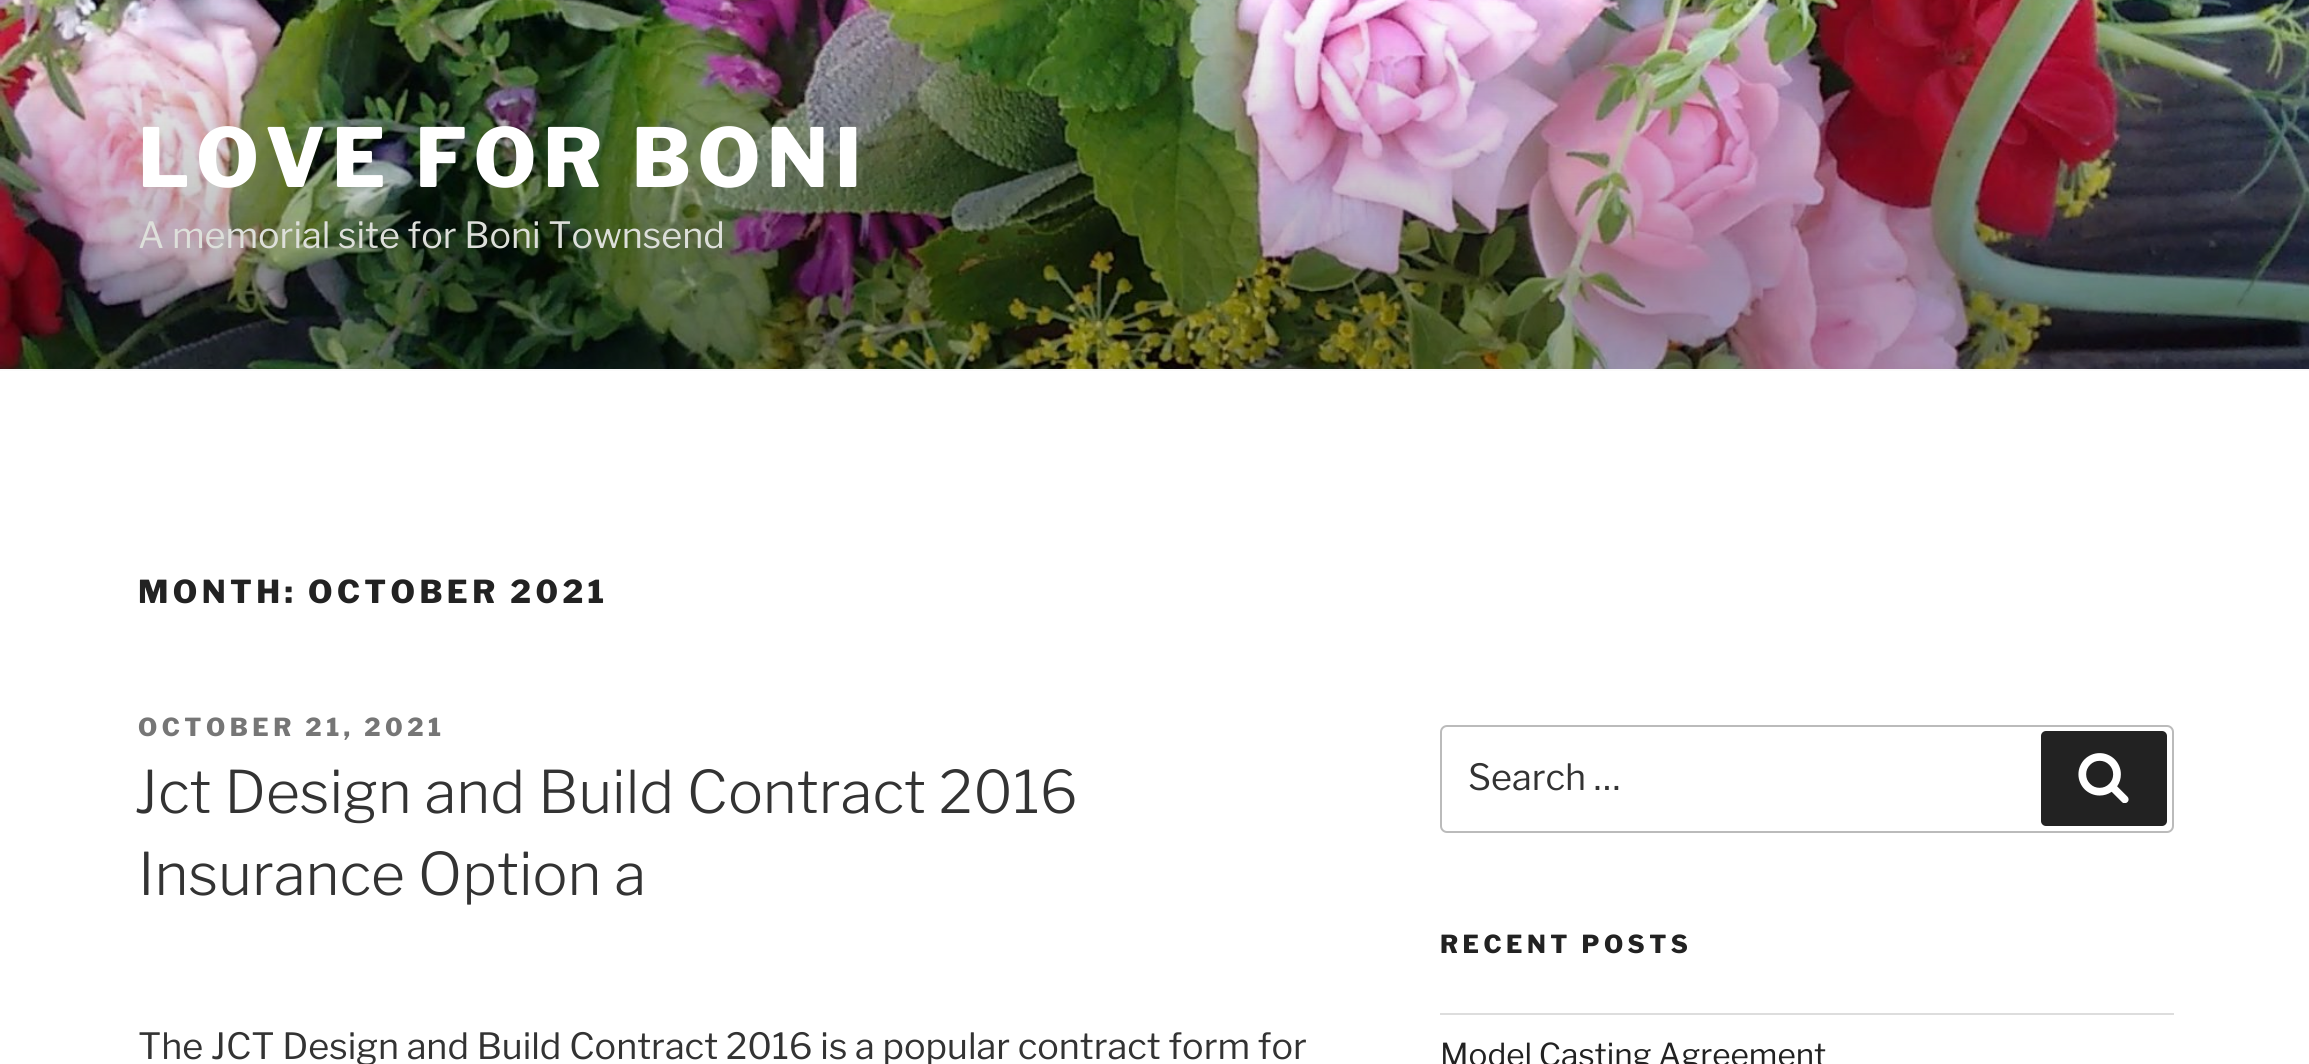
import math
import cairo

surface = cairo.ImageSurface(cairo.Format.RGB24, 2309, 1064)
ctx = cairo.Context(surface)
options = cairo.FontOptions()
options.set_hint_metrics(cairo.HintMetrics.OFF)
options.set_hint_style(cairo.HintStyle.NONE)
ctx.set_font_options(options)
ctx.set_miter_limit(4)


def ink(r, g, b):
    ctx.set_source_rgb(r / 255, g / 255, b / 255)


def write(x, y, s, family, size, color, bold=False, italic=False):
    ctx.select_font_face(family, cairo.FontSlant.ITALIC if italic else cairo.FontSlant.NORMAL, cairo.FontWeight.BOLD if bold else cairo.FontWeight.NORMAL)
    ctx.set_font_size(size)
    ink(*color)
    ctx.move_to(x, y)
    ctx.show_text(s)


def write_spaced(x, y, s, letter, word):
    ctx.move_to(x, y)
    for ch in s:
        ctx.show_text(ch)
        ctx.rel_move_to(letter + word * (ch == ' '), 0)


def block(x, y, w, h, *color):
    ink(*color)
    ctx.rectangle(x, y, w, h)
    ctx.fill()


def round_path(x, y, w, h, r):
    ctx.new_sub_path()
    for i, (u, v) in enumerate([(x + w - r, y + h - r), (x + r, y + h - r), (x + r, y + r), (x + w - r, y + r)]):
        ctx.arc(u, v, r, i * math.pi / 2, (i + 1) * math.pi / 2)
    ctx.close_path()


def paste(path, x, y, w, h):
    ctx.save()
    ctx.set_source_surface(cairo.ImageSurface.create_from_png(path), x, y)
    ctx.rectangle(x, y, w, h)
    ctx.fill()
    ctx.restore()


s1 = dict(family="Libre Franklin", size=36, color=(221, 223, 218))
s2 = dict(family="Libre Franklin Light", size=58.5, color=(51, 51, 51))
s3 = dict(family="Libre Franklin", size=36, color=(51, 51, 51))
s4 = dict(family="Libre Franklin", size=31.5, color=(34, 34, 34))

ink(255, 255, 255)
ctx.paint()
block(0, 369, 2309, 2, 250, 250, 250)
paste("pic1.png", 0, 0, 2309, 369)
ctx.select_font_face("Libre Franklin ExtraBold")
ctx.set_font_size(81)
ink(255, 255, 255)
write_spaced(138, 187, "LOVE FOR BONI", 6.5, 0)
write(138, 248, "A memorial site for Boni Townsend", **s1)
ctx.select_font_face("Libre Franklin ExtraBold")
ctx.set_font_size(31.5)
ink(34, 34, 34)
write_spaced(138, 603, "MONTH: OCTOBER 2021", 4.4, 0)
ctx.set_font_size(24.75)
ink(118, 118, 118)
write_spaced(138, 736, "OCTOBER 21, 2021", 4.5, 0)
write(134, 813, "Jct Design and Build Contract 2016", **s2)
write(138, 895, "Insurance Option a", **s2)
write(138, 1059, "The JCT Design and Build Contract 2016 is a popular contract form for", **s3)
round_path(1441, 726, 732, 106, 6)
ink(187, 187, 187)
ctx.stroke()
write(1468, 790, "Search …", **s3)
ink(34, 34, 34)
round_path(2041, 731, 126, 95, 5)
ctx.fill()
paste("pic2.png", 2078, 753, 51, 50)
ctx.select_font_face("Libre Franklin ExtraBold")
ctx.set_font_size(24.75)
write_spaced(1440, 953, "RECENT POSTS", 4.5, 0)
block(1440, 1013, 734, 2, 221, 221, 221)
write(1440, 1066, "Model Casting Agreement", **s4)
surface.write_to_png("screenshot.png")
